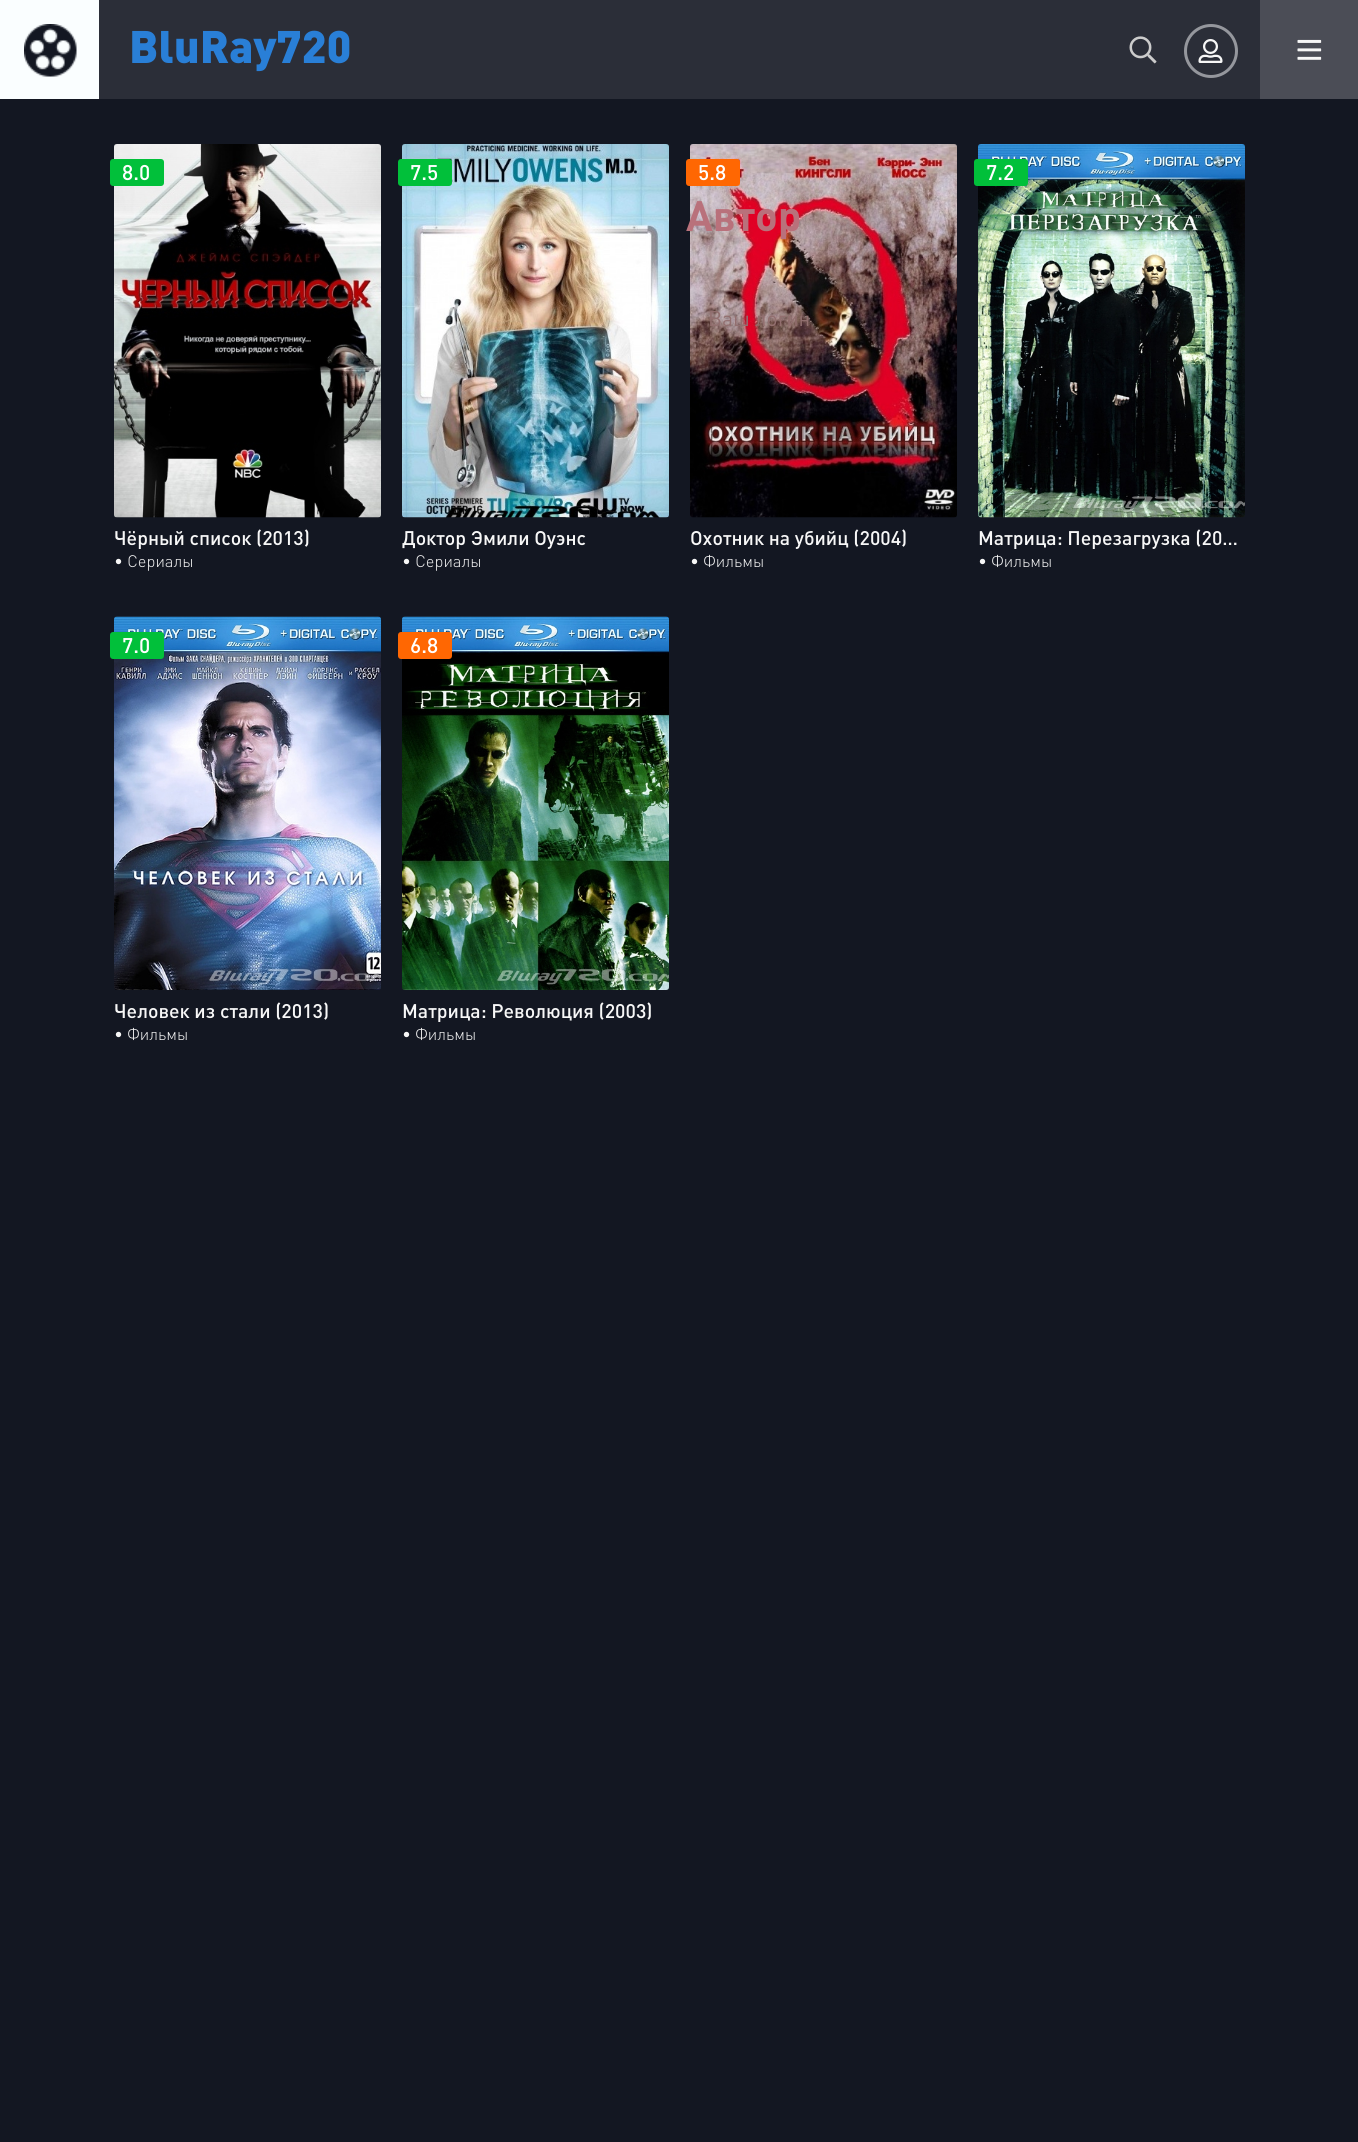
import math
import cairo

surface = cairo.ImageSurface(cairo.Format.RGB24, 1358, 2142)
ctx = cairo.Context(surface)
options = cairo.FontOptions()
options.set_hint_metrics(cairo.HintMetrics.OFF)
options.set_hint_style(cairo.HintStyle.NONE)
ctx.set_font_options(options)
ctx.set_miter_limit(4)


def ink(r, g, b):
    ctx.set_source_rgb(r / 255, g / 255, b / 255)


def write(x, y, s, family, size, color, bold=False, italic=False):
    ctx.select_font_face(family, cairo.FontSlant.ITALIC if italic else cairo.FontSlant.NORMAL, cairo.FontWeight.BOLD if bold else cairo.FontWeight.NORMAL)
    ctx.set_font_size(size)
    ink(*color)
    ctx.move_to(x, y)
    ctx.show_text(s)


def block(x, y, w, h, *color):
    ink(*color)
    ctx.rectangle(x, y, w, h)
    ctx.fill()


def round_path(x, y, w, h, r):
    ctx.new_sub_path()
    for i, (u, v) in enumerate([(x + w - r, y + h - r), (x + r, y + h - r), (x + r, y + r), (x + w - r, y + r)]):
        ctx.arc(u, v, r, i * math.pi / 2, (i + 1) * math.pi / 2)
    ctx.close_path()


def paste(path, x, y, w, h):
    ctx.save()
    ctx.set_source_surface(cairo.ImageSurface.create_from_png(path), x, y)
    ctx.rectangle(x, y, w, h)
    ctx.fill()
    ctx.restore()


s1 = dict(family="DIN Black", size=45, color=(41, 127, 215))
s2 = dict(family="DIN", size=42, color=(185, 113, 123), bold=True)
s3 = dict(family="DIN", size=21, color=(146, 111, 111))
s4 = dict(family="DIN Medium", size=21, color=(255, 255, 255))
s5 = dict(family="DIN Medium", size=19.5, color=(247, 247, 247))
s6 = dict(family="DIN Light", size=16.5, color=(247, 247, 247))

ink(19, 23, 34)
ctx.paint()
block(99, 0, 1161, 99, 43, 46, 56)
block(0, 0, 99, 99, 250, 254, 255)
paste("pic1.png", 24, 24, 53, 53)
write(129, 63, "BluRay720", **s1)
paste("pic2.png", 1129, 36, 28, 28)
ctx.arc(1211, 51, 25.5, 0, 2 * math.pi)
ink(149, 151, 157)
ctx.set_line_width(3)
ctx.stroke()
paste("pic3.png", 1198, 39, 25, 24)
block(1260, 0, 98, 99, 75, 77, 86)
paste("pic4.png", 1297, 39, 25, 21)
paste("pic7.png", 690, 144, 267, 374)
write(686, 231, "Автор", **s2)
write(708, 326, "Ваш логин", **s3)
paste("pic5.png", 114, 144, 267, 374)
ink(1, 192, 58)
round_path(110, 159, 54, 27, 3)
ctx.fill()
write(122, 180, "8.0", **s4)
write(114, 545, "Чёрный список (2013)", **s5)
write(114, 567, "• Сериалы", **s6)
paste("pic6.png", 402, 144, 267, 374)
ink(1, 192, 58)
round_path(398, 159, 54, 27, 3)
ctx.fill()
write(410, 180, "7.5", **s4)
write(402, 545, "Доктор Эмили Оуэнс", **s5)
write(402, 567, "• Сериалы", **s6)
ink(255, 103, 2)
round_path(686, 159, 54, 27, 3)
ctx.fill()
write(698, 180, "5.8", **s4)
write(690, 545, "Охотник на убийц (2004)", **s5)
write(690, 567, "• Фильмы", **s6)
paste("pic8.png", 978, 144, 267, 374)
ink(1, 192, 58)
round_path(974, 159, 54, 27, 3)
ctx.fill()
write(986, 180, "7.2", **s4)
write(978, 545, "Матрица: Перезагрузка (20…", **s5)
write(978, 567, "• Фильмы", **s6)
paste("pic9.png", 114, 616, 267, 374)
ink(1, 192, 58)
round_path(110, 632, 54, 27, 3)
ctx.fill()
write(122, 653, "7.0", **s4)
write(114, 1018, "Человек из стали (2013)", **s5)
write(114, 1040, "• Фильмы", **s6)
paste("pic10.png", 402, 616, 267, 374)
ink(255, 103, 2)
round_path(398, 632, 54, 27, 3)
ctx.fill()
write(410, 653, "6.8", **s4)
write(402, 1018, "Матрица: Революция (2003)", **s5)
write(402, 1040, "• Фильмы", **s6)
surface.write_to_png("screenshot.png")
